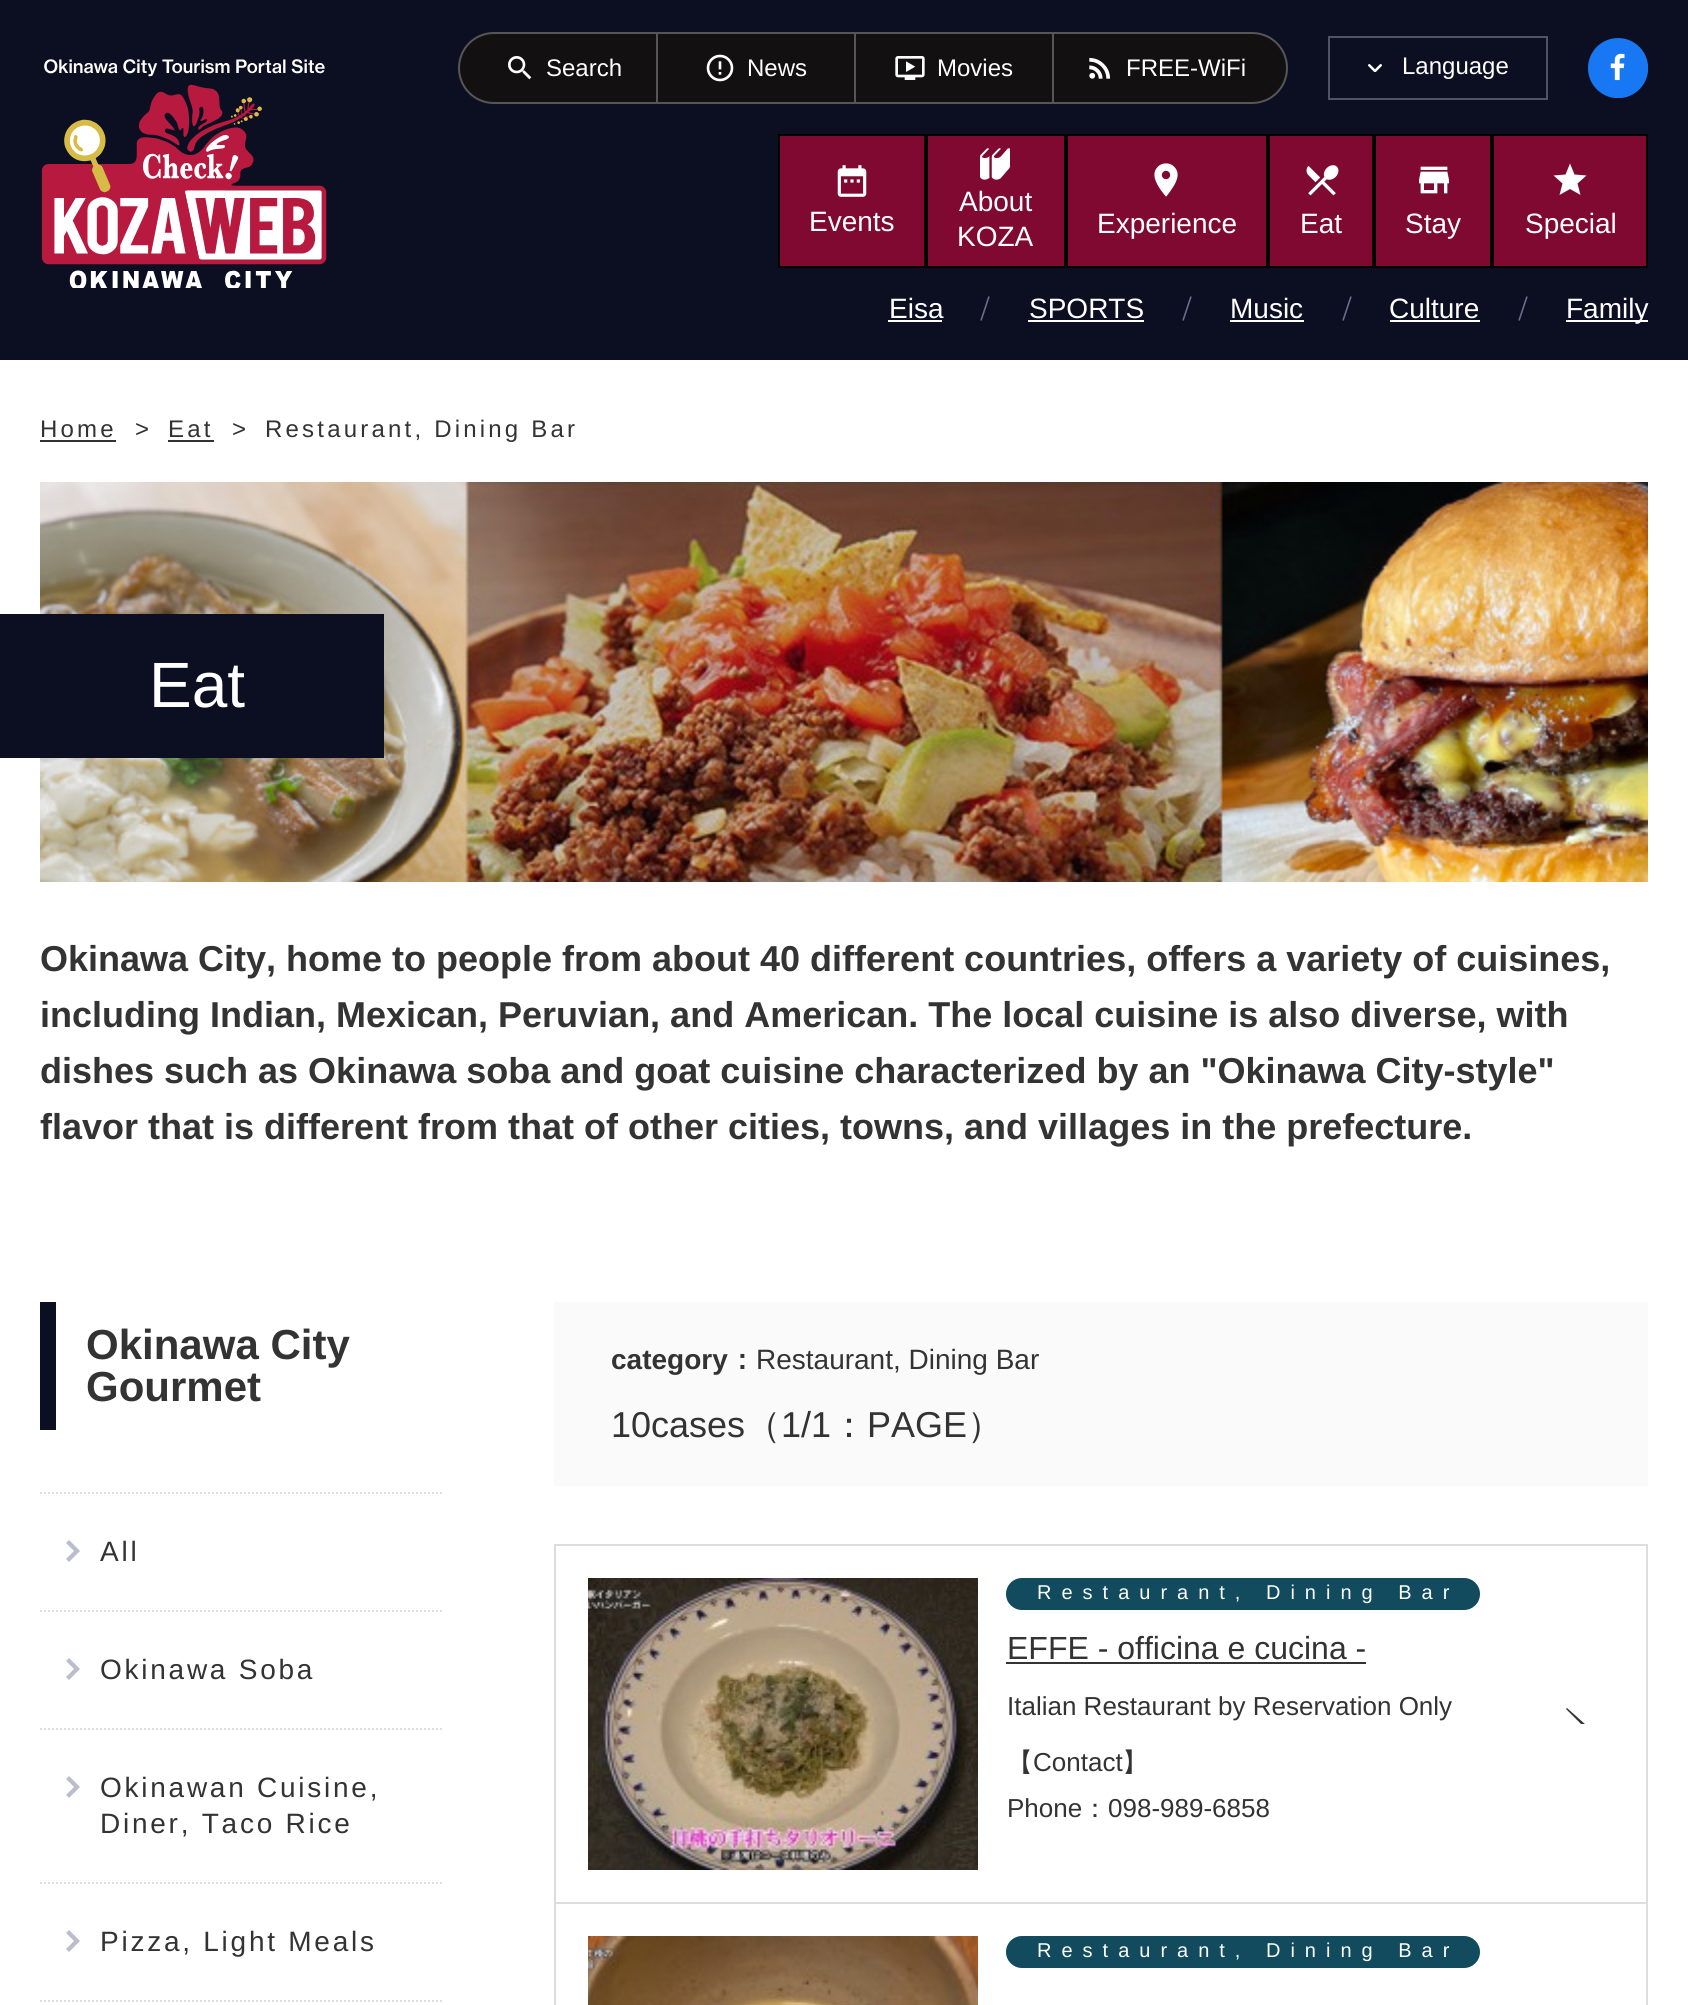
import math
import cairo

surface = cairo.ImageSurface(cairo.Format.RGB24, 1688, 2005)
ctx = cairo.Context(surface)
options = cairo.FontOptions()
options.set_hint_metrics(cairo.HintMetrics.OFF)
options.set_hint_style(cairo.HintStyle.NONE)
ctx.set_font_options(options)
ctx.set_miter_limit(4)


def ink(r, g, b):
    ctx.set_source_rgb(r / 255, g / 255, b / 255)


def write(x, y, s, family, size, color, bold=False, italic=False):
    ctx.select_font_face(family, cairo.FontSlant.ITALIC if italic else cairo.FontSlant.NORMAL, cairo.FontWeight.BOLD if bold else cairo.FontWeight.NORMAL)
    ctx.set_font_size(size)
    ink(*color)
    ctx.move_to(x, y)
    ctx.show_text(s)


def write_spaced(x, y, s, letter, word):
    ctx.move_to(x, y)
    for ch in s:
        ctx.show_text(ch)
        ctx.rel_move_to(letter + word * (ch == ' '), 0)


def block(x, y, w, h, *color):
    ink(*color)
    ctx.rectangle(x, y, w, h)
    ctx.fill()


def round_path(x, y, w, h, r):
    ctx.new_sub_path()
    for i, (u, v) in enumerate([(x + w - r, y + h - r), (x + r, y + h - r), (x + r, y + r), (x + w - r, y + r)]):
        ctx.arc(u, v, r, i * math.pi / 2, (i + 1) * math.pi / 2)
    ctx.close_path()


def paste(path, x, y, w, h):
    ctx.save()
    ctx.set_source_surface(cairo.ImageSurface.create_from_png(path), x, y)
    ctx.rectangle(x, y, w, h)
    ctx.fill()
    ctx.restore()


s1 = dict(family="Liberation Sans", size=24, color=(255, 255, 255))
s2 = dict(family="Liberation Sans", size=28, color=(255, 255, 255))
s3 = dict(family="Liberation Sans", size=64, color=(255, 255, 255))
s4 = dict(family="Liberation Sans", size=36, color=(51, 51, 51), bold=True)
s5 = dict(family="Liberation Sans", size=42, color=(51, 51, 51), bold=True)
s6 = dict(family="Liberation Sans", size=28, color=(51, 51, 51), bold=True)
s7 = dict(family="WenQuanYi Zen Hei", size=28, color=(51, 51, 51), bold=True)
s8 = dict(family="Liberation Sans", size=28, color=(51, 51, 51))
s9 = dict(family="Liberation Sans", size=36, color=(51, 51, 51))
s10 = dict(family="WenQuanYi Zen Hei Medium", size=36, color=(51, 51, 51))
s11 = dict(family="Liberation Sans", size=32, color=(51, 51, 51))
s12 = dict(family="Liberation Sans", size=26, color=(51, 51, 51))
s13 = dict(family="WenQuanYi Zen Hei Medium", size=26, color=(51, 51, 51))

ink(255, 255, 255)
ctx.paint()
block(0, 0, 1688, 360, 12, 15, 34)
ink(18, 16, 16)
ctx.new_path()
ctx.move_to(494, 33)
ctx.line_to(657, 33)
ctx.line_to(657, 103)
ctx.line_to(494, 103)
ctx.curve_to(474.5, 103, 459, 87.5, 459, 68)
ctx.curve_to(459, 48.5, 474.5, 33, 494, 33)
ctx.close_path()
ctx.fill_preserve()
ink(86, 86, 86)
ctx.stroke()
paste("pic1.png", 508, 56, 24, 24)
write(546, 76, "Search", **s1)
ink(18, 16, 16)
ctx.rectangle(657, 33, 198, 70)
ctx.fill_preserve()
ink(86, 86, 86)
ctx.stroke()
paste("pic2.png", 706, 54, 28, 28)
write(747, 76, "News", **s1)
ink(18, 16, 16)
ctx.rectangle(855, 33, 198, 70)
ctx.fill_preserve()
ink(86, 86, 86)
ctx.stroke()
paste("pic3.png", 895, 56, 30, 24)
write(937, 76, "Movies", **s1)
ink(18, 16, 16)
ctx.new_path()
ctx.move_to(1053, 33)
ctx.line_to(1252, 33)
ctx.curve_to(1271.5, 33, 1287, 48.5, 1287, 68)
ctx.curve_to(1287, 87.5, 1271.5, 103, 1252, 103)
ctx.line_to(1053, 103)
ctx.close_path()
ctx.fill_preserve()
ink(86, 86, 86)
ctx.stroke()
paste("pic4.png", 1089, 57, 22, 22)
write(1126, 76, "FREE-WiFi", **s1)
ctx.rectangle(1329, 37, 218, 62)
ink(81, 83, 100)
ctx.stroke()
paste("pic5.png", 1368, 64, 14, 8)
write(1402, 74, "Language", **s1)
paste("pic6.png", 1588, 38, 60, 60)
paste("pic7.png", 41, 59, 286, 229)
ctx.rectangle(779, 135, 146, 132)
ink(0, 0, 0)
ctx.stroke()
block(780, 136, 144, 130, 128, 9, 49)
paste("pic8.png", 837, 165, 30, 32)
write(809, 231, "Events", **s2)
ctx.rectangle(927, 135, 138, 132)
ink(0, 0, 0)
ctx.stroke()
block(928, 136, 136, 130, 128, 9, 49)
paste("pic9.png", 980, 148, 30, 32)
write(959, 211, "About", **s2)
write(957, 246, "KOZA", **s2)
ctx.rectangle(1067, 135, 200, 132)
ink(0, 0, 0)
ctx.stroke()
block(1068, 136, 198, 130, 128, 9, 49)
paste("pic10.png", 1154, 163, 24, 34)
write(1097, 233, "Experience", **s2)
ctx.rectangle(1269, 135, 104, 132)
ink(0, 0, 0)
ctx.stroke()
block(1270, 136, 102, 130, 128, 9, 49)
paste("pic11.png", 1306, 165, 33, 31)
write(1300, 233, "Eat", **s2)
ctx.rectangle(1375, 135, 116, 132)
ink(0, 0, 0)
ctx.stroke()
block(1376, 136, 114, 130, 128, 9, 49)
paste("pic12.png", 1419, 166, 30, 28)
write(1405, 233, "Stay", **s2)
ctx.rectangle(1493, 135, 154, 132)
ink(0, 0, 0)
ctx.stroke()
block(1494, 136, 152, 130, 128, 9, 49)
ink(255, 255, 255)
ctx.new_path()
ctx.move_to(1570, 189)
ctx.line_to(1559.5, 195)
ctx.line_to(1562.5, 183.5)
ctx.line_to(1553.5, 175.5)
ctx.line_to(1565.5, 174.5)
ctx.line_to(1570, 163.5)
ctx.line_to(1574.5, 174.5)
ctx.line_to(1586.5, 175.5)
ctx.line_to(1577.5, 183.5)
ctx.line_to(1580.5, 195)
ctx.close_path()
ctx.fill()
write(1525, 233, "Special", **s2)
write(889, 318, "Eisa", **s2)
block(888, 320, 54, 2, 255, 255, 255)
ctx.new_path()
ctx.move_to(989, 296.5)
ctx.line_to(981, 320.5)
ink(106, 110, 136)
ctx.set_line_width(1.6)
ctx.stroke()
write(1029, 318, "SPORTS", **s2)
block(1028, 320, 116, 2, 255, 255, 255)
ctx.new_path()
ctx.move_to(1191, 296.5)
ctx.line_to(1183, 320.5)
ink(106, 110, 136)
ctx.stroke()
write(1230, 318, "Music", **s2)
block(1230, 320, 74, 2, 255, 255, 255)
ctx.new_path()
ctx.move_to(1351, 296.5)
ctx.line_to(1343, 320.5)
ink(106, 110, 136)
ctx.stroke()
write(1389, 318, "Culture", **s2)
block(1390, 320, 90, 2, 255, 255, 255)
ctx.new_path()
ctx.move_to(1527, 296.5)
ctx.line_to(1519, 320.5)
ink(106, 110, 136)
ctx.stroke()
block(1566, 320, 82, 2, 255, 255, 255)
write(1566, 318, "Family", **s2)
ctx.set_font_size(24)
ink(51, 51, 51)
write_spaced(40, 437, "Home", 3.2, 0)
block(40, 440, 76, 2, 51, 51, 51)
write_spaced(135, 437, ">", 3.2, 0)
write_spaced(168, 437, "Eat", 3.2, 0)
block(168, 440, 46, 2, 51, 51, 51)
write_spaced(232, 437, ">", 3.2, 0)
write_spaced(265, 437, "Restaurant, Dining Bar", 3.2, 0)
paste("pic13.png", 40, 482, 1608, 400)
block(0, 614, 384, 144, 12, 15, 34)
write(149, 707, "Eat", **s3)
write(40, 971, "Okinawa City, home to people from about 40 different countries, offers a variety of cuisines,", **s4)
write(40, 1027, "including Indian, Mexican, Peruvian, and American. The local cuisine is also diverse, with", **s4)
write(40, 1083, "dishes such as Okinawa soba and goat cuisine characterized by an \"Okinawa City-style\"", **s4)
write(40, 1139, "flavor that is different from that of other cities, towns, and villages in the prefecture.", **s4)
block(40, 1302, 16, 128, 12, 15, 34)
write(86, 1359, "Okinawa City", **s5)
write(86, 1401, "Gourmet", **s5)
ctx.new_path()
ctx.move_to(40, 1493)
ctx.line_to(442, 1493)
ink(221, 221, 221)
ctx.set_line_width(2)
ctx.set_dash([2, 2])
ctx.stroke()
ink(186, 189, 206)
ctx.new_path()
ctx.move_to(69, 1540)
ctx.line_to(66, 1543)
ctx.line_to(74, 1551)
ctx.line_to(66, 1559)
ctx.line_to(69, 1562)
ctx.line_to(80, 1551)
ctx.close_path()
ctx.fill()
ctx.new_path()
ctx.move_to(40, 1611)
ctx.line_to(442, 1611)
ink(221, 221, 221)
ctx.stroke()
ctx.select_font_face("Liberation Sans")
ctx.set_font_size(28)
ink(51, 51, 51)
write_spaced(100, 1561, "All", 2.75, 0)
ink(186, 189, 206)
ctx.new_path()
ctx.move_to(69, 1658)
ctx.line_to(66, 1661)
ctx.line_to(74, 1669)
ctx.line_to(66, 1677)
ctx.line_to(69, 1680)
ctx.line_to(80, 1669)
ctx.close_path()
ctx.fill()
ctx.new_path()
ctx.move_to(40, 1729)
ctx.line_to(442, 1729)
ink(221, 221, 221)
ctx.stroke()
ink(51, 51, 51)
write_spaced(100, 1679, "Okinawa Soba", 2.75, 0)
ink(186, 189, 206)
ctx.new_path()
ctx.move_to(69, 1776)
ctx.line_to(66, 1779)
ctx.line_to(74, 1787)
ctx.line_to(66, 1795)
ctx.line_to(69, 1798)
ctx.line_to(80, 1787)
ctx.close_path()
ctx.fill()
ctx.new_path()
ctx.move_to(40, 1883)
ctx.line_to(442, 1883)
ink(221, 221, 221)
ctx.stroke()
ink(51, 51, 51)
write_spaced(100, 1797, "Okinawan Cuisine,", 2.75, 0)
write_spaced(100, 1833, "Diner, Taco Rice", 2.75, 0)
ink(186, 189, 206)
ctx.new_path()
ctx.move_to(69, 1930)
ctx.line_to(66, 1933)
ctx.line_to(74, 1941)
ctx.line_to(66, 1949)
ctx.line_to(69, 1952)
ctx.line_to(80, 1941)
ctx.close_path()
ctx.fill()
ctx.new_path()
ctx.move_to(40, 2001)
ctx.line_to(442, 2001)
ink(221, 221, 221)
ctx.stroke()
ink(51, 51, 51)
write_spaced(100, 1951, "Pizza, Light Meals", 2.75, 0)
block(554, 1302, 1094, 184, 250, 250, 250)
write(611, 1369, "category", **s6)
write(728, 1369, "：", **s7)
write(756, 1369, "Restaurant, Dining Bar", **s8)
write(611, 1437, "10cases", **s9)
write(745, 1437, "（", **s10)
write(781, 1437, "1/1", **s9)
write(831, 1437, "：", **s10)
write(867, 1437, "PAGE", **s9)
write(967, 1437, "）", **s10)
ctx.rectangle(555, 1545, 1092, 358)
ink(221, 221, 221)
ctx.set_dash([])
ctx.stroke()
paste("pic14.png", 588, 1578, 390, 292)
ink(17, 75, 93)
round_path(1006, 1578, 474, 32, 16)
ctx.fill()
ctx.select_font_face("Liberation Sans")
ctx.set_font_size(20)
ink(255, 255, 255)
write_spaced(1037, 1599, "Restaurant, Dining Bar", 10, 0)
write(1007, 1659, "EFFE - officina e cucina -", **s11)
block(1006, 1662, 360, 2, 51, 51, 51)
write(1007, 1715, "Italian Restaurant by Reservation Only", **s12)
write(1007, 1771, "【", **s13)
write(1033, 1771, "Contact", **s12)
write(1122, 1771, "】", **s13)
write(1007, 1817, "Phone", **s12)
write(1082, 1817, "：", **s13)
write(1108, 1817, "098-989-6858", **s12)
ctx.save()
ctx.rectangle(1540, 1708, 46, 16)
ctx.clip()
ctx.new_path()
ctx.move_to(1586, 1725)
ctx.line_to(1540, 1725)
ctx.line_to(1540, 1724)
ctx.line_to(1581, 1724)
ctx.line_to(1566, 1709)
ctx.line_to(1567, 1708)
ctx.close_path()
ctx.fill()
ctx.restore()
ctx.rectangle(555, 1903, 1092, 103)
ink(221, 221, 221)
ctx.stroke()
paste("pic15.png", 588, 1936, 390, 69)
ink(17, 75, 93)
round_path(1006, 1936, 474, 32, 16)
ctx.fill()
ctx.set_font_size(20)
ink(255, 255, 255)
write_spaced(1037, 1957, "Restaurant, Dining Bar", 10, 0)
surface.write_to_png("screenshot.png")
